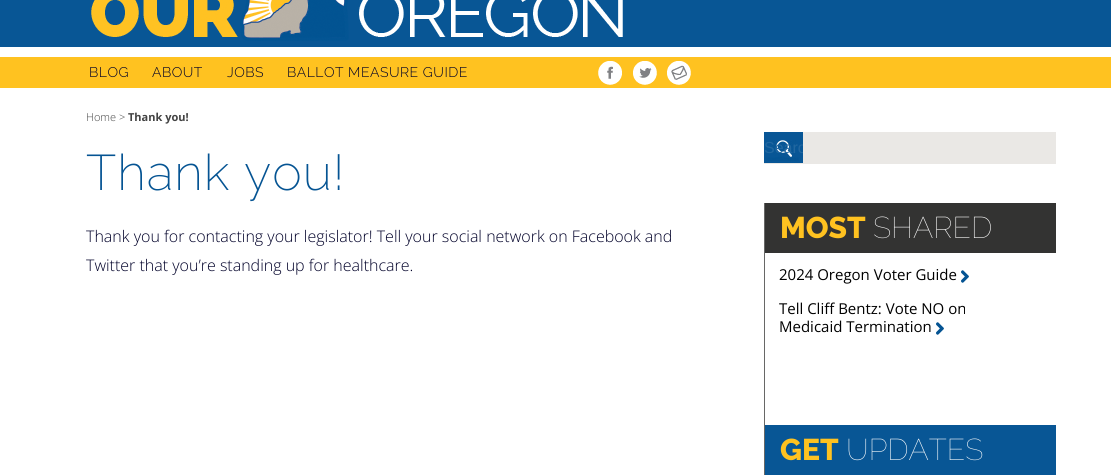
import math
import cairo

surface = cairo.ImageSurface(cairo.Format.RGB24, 1111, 475)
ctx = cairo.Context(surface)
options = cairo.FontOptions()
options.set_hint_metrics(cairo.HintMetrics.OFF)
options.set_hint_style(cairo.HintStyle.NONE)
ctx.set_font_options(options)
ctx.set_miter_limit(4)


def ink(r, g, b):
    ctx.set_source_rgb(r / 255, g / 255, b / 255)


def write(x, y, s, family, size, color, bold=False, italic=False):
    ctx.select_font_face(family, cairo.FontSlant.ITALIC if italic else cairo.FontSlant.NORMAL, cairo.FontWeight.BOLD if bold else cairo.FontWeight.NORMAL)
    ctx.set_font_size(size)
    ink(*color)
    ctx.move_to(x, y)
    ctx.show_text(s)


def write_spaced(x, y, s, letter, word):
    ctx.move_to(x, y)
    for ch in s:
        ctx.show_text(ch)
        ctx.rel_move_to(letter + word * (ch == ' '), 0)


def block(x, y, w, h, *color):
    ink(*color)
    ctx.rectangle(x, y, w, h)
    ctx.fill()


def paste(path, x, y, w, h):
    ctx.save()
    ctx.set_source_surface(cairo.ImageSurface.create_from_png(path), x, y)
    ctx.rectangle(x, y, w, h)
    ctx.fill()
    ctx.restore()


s1 = dict(family="Open Sans Light", size=11, color=(67, 67, 67))
s2 = dict(family="Open Sans", size=11, color=(67, 67, 67), bold=True)
s3 = dict(family="Open Sans Light", size=16, color=(0, 0, 40))
s4 = dict(family="Liberation Sans", size=16, color=(33, 103, 160))
s5 = dict(family="Raleway ExtraBold", size=30, color=(255, 194, 32))
s6 = dict(family="Raleway Thin", size=30, color=(255, 255, 255))
s7 = dict(family="Open Sans", size=15, color=(0, 0, 0))

ink(255, 255, 255)
ctx.paint()
block(0, 0, 1111, 47, 8, 86, 149)
paste("pic1.png", 91, 0, 532, 41)
block(0, 57, 1111, 31, 255, 194, 32)
ctx.select_font_face("Raleway Light")
ctx.set_font_size(14)
ink(0, 0, 40)
write_spaced(89, 77, "BLOG", 0.5, 0)
write_spaced(152, 77, "ABOUT", 0.5, 0)
write_spaced(227, 77, "JOBS", 0.5, 0)
write_spaced(287, 77, "BALLOT MEASURE GUIDE", 0.5, 0)
paste("pic2.png", 598, 61, 24, 24)
paste("pic3.png", 633, 61, 24, 24)
paste("pic4.png", 667, 61, 24, 24)
write(86, 121, "Home >", **s1)
write(128, 121, "Thank you!", **s2)
ctx.select_font_face("Raleway ExtraLight")
ctx.set_font_size(50)
ink(5, 84, 147)
write_spaced(86, 190, "Thank you!", 1, 0)
write(86, 242, "Thank you for contacting your legislator! Tell your social network on Facebook and", **s3)
write(86, 271, "Twitter that you’re standing up for healthcare.", **s3)
block(764, 132, 292, 32, 234, 232, 229)
paste("pic5.png", 764, 132, 39, 31)
ctx.save()
ctx.rectangle(764, 132, 39, 31)
ctx.clip()
write(764, 153, "Searc", **s4)
ctx.restore()
block(764, 203, 1, 272, 103, 103, 102)
block(765, 203, 291, 50, 51, 51, 50)
write(780, 238, "MOST", **s5)
write(873, 238, "SHARED", **s6)
write(779, 280, "2024 Oregon Voter Guide", **s7)
paste("pic6.png", 961, 270, 8, 13)
write(779, 314, "Tell Cliff Bentz: Vote NO on", **s7)
write(779, 332, "Medicaid Termination", **s7)
paste("pic6.png", 936, 322, 8, 13)
block(765, 425, 291, 50, 8, 86, 149)
write(780, 460, "GET", **s5)
write(846, 460, "UPDATES", **s6)
surface.write_to_png("screenshot.png")
